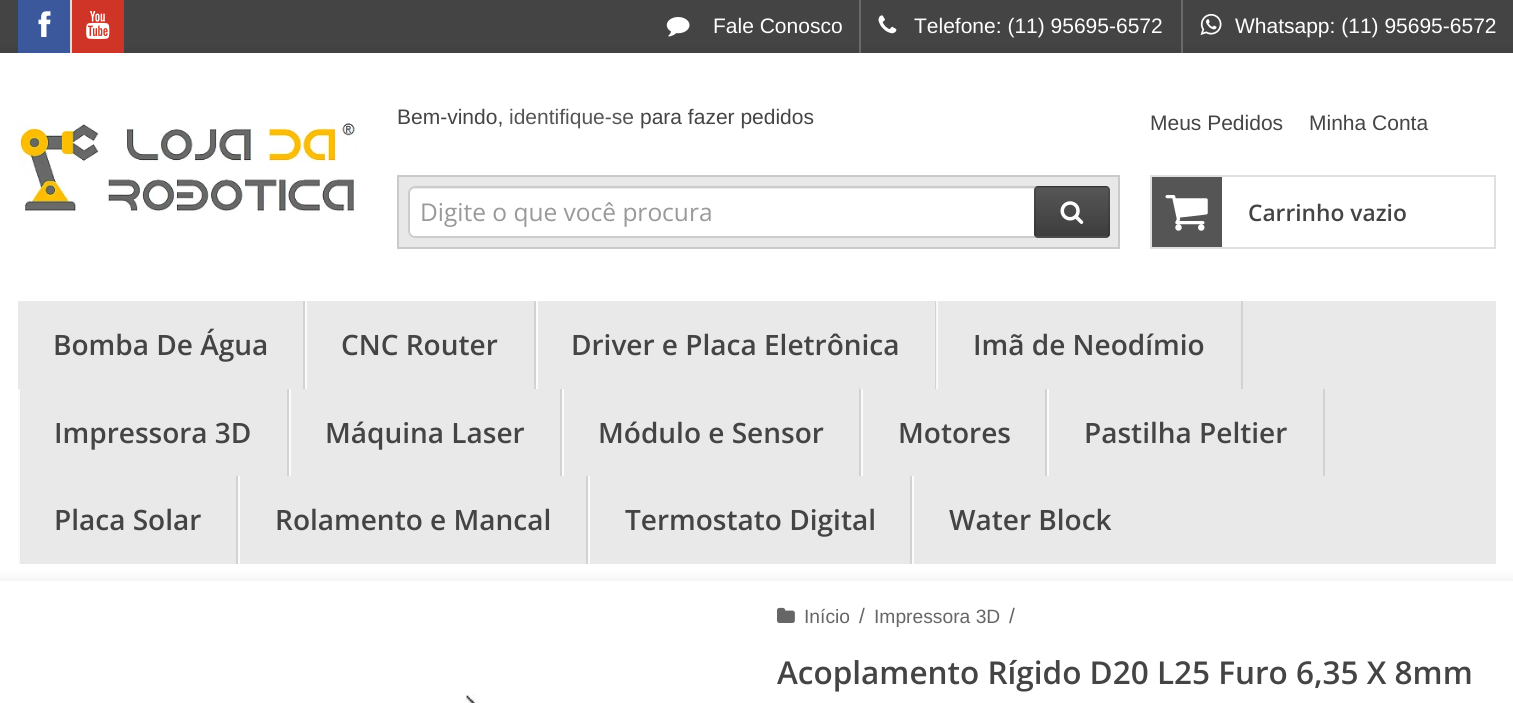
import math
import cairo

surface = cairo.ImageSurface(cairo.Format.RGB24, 1513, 703)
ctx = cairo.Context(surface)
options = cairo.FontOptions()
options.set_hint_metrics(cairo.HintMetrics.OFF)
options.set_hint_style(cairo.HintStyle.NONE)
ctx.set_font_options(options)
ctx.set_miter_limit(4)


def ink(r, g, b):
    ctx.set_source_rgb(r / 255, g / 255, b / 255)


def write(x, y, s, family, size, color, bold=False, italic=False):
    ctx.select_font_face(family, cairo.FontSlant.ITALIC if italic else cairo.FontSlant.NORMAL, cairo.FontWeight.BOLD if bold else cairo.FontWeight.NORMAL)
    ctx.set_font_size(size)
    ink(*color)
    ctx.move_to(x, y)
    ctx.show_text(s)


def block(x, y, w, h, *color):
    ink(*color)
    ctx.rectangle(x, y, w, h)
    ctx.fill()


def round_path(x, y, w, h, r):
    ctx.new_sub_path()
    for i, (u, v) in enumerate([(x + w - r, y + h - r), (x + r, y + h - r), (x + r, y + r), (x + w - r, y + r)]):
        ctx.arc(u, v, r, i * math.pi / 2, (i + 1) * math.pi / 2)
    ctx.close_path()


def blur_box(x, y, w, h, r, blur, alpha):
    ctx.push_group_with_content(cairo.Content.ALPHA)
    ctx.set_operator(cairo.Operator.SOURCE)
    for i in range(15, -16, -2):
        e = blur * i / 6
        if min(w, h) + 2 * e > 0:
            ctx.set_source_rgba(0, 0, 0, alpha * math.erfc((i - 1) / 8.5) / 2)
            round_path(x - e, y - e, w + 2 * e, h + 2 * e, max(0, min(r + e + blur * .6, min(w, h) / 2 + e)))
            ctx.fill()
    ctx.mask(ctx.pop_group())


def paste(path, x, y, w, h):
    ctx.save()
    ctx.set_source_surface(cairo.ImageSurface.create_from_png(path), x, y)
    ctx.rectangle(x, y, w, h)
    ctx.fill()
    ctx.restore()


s1 = dict(family="Liberation Sans", size=21, color=(255, 255, 255))
s2 = dict(family="Liberation Sans", size=21, color=(68, 68, 68))
s3 = dict(family="Liberation Sans", size=21, color=(85, 85, 85))
s4 = dict(family="Open Sans", size=24.5, color=(153, 153, 153))
s5 = dict(family="Open Sans SemiBold", size=22.75, color=(68, 68, 68))
s6 = dict(family="Open Sans SemiBold", size=28, color=(68, 68, 68))
s7 = dict(family="Liberation Sans", size=19.25, color=(102, 102, 102))
s8 = dict(family="Liberation Sans", size=21, color=(102, 102, 102))
s9 = dict(family="Open Sans SemiBold", size=31.5, color=(68, 68, 68))

ink(68, 68, 68)
ctx.paint()
ink(0, 0, 0)
blur_box(0, 58, 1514, 528, 0, 9, 0.15)
block(18, 0, 52, 53, 58, 88, 155)
paste("pic1.png", 38, 11, 13, 26)
block(70, 0, 2, 53, 221, 221, 221)
block(72, 0, 52, 53, 207, 52, 39)
paste("pic2.png", 86, 11, 24, 28)
paste("pic3.png", 666, 17, 24, 20)
write(713, 33, "Fale Conosco", **s1)
block(859, 0, 2, 53, 105, 105, 105)
paste("pic4.png", 878, 15, 19, 19)
write(914, 33, "Telefone: (11) 95695-6572", **s1)
block(1181, 0, 2, 53, 105, 105, 105)
paste("pic5.png", 1200, 13, 22, 22)
write(1235, 33, "Whatsapp: (11) 95695-6572", **s1)
block(0, 53, 1513, 528, 255, 255, 255)
paste("pic6.png", 17, 121, 340, 92)
write(397, 124, "Bem-vindo,", **s2)
write(509, 124, "identifique-se", **s3)
write(640, 124, "para fazer pedidos", **s2)
write(1150, 130, "Meus Pedidos", **s2)
write(1309, 130, "Minha Conta", **s2)
ink(232, 232, 232)
ctx.rectangle(398, 176, 721, 72)
ctx.fill_preserve()
ink(202, 202, 202)
ctx.stroke()
ink(255, 255, 255)
round_path(408, 186, 684, 52, 7)
ctx.fill()
ink(236, 236, 236)
ctx.new_path()
ctx.move_to(415, 189)
ctx.line_to(1085, 189)
ctx.curve_to(1088, 189, 1090, 191, 1090, 194)
ctx.line_to(1090, 192)
ctx.curve_to(1090, 189, 1088, 187, 1085, 187)
ctx.line_to(415, 187)
ctx.curve_to(412, 187, 410, 189, 410, 192)
ctx.line_to(410, 194)
ctx.curve_to(410, 191, 412, 189, 415, 189)
ctx.close_path()
ctx.fill()
round_path(409, 187, 682, 50, 6)
ink(204, 204, 204)
ctx.stroke()
write(420, 221, "Digite o que você procura", **s4)
ink(68, 68, 68)
round_path(1034, 186, 76, 52, 4)
ctx.fill()
ctx.save()
round_path(1034, 186, 76, 52, 4)
ctx.clip()
gradient = cairo.LinearGradient(1072, 138, 1072, 187)
gradient.add_color_stop_rgba(0, 1, 1, 1, 0.1)
gradient.add_color_stop_rgba(1, 0, 0, 0, 0.1)
ctx.set_source(gradient)
ctx.rectangle(1034, 186, 76, 1)
ctx.fill()
ctx.restore()
gradient = cairo.LinearGradient(1072, 187, 1072, 236)
gradient.add_color_stop_rgba(0, 1, 1, 1, 0.1)
gradient.add_color_stop_rgba(1, 0, 0, 0, 0.1)
ctx.set_source(gradient)
ctx.rectangle(1034, 187, 76, 49)
ctx.fill()
ctx.save()
round_path(1034, 186, 76, 52, 4)
ctx.clip()
gradient = cairo.LinearGradient(1072, 236, 1072, 285)
gradient.add_color_stop_rgba(0, 1, 1, 1, 0.1)
gradient.add_color_stop_rgba(1, 0, 0, 0, 0.1)
ctx.set_source(gradient)
ctx.rectangle(1034, 236, 76, 2)
ctx.fill()
ctx.restore()
round_path(1035, 187, 74, 50, 3)
ctx.set_source_rgba(0, 0, 0, 0.13)
ctx.stroke()
paste("pic7.png", 1060, 201, 24, 23)
ctx.rectangle(1151, 176, 344, 72)
ink(224, 224, 224)
ctx.stroke()
block(1152, 177, 70, 70, 85, 85, 85)
paste("pic8.png", 1165, 195, 43, 36)
write(1248, 221, "Carrinho vazio", **s5)
block(18, 301, 1478, 263, 233, 233, 233)
block(937, 301, 1, 88, 251, 251, 251)
block(303, 301, 2, 88, 210, 210, 210)
write(53, 355, "Bomba De Água", **s6)
block(534, 301, 2, 88, 210, 210, 210)
block(305, 301, 2, 88, 251, 251, 251)
write(341, 355, "CNC Router", **s6)
block(935, 301, 1, 88, 210, 210, 210)
block(936, 301, 1, 88, 246, 246, 246)
block(536, 301, 2, 88, 251, 251, 251)
write(571, 355, "Driver e Placa Eletrônica", **s6)
block(1241, 301, 2, 88, 210, 210, 210)
write(973, 355, "Imã de Neodímio", **s6)
block(287, 389, 2, 87, 210, 210, 210)
ink(0, 0, 0)
blur_box(0, 586, 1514, 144, 0, 9, 0.15)
block(18, 389, 2, 175, 251, 251, 251)
write(54, 443, "Impressora 3D", **s6)
block(560, 389, 2, 87, 210, 210, 210)
block(289, 389, 2, 87, 251, 251, 251)
write(325, 443, "Máquina Laser", **s6)
block(859, 389, 2, 87, 210, 210, 210)
block(562, 389, 2, 87, 251, 251, 251)
write(598, 443, "Módulo e Sensor", **s6)
block(1045, 389, 2, 87, 210, 210, 210)
block(861, 389, 2, 87, 251, 251, 251)
write(898, 443, "Motores", **s6)
block(1323, 389, 2, 87, 210, 210, 210)
block(1047, 389, 2, 87, 251, 251, 251)
write(1084, 443, "Pastilha Peltier", **s6)
block(236, 476, 2, 88, 210, 210, 210)
write(54, 530, "Placa Solar", **s6)
block(586, 476, 2, 88, 210, 210, 210)
block(238, 476, 2, 88, 251, 251, 251)
write(275, 530, "Rolamento e Mancal", **s6)
block(910, 476, 2, 88, 210, 210, 210)
block(588, 476, 2, 88, 251, 251, 251)
write(625, 530, "Termostato Digital", **s6)
block(912, 476, 2, 88, 251, 251, 251)
write(949, 530, "Water Block", **s6)
block(0, 581, 1513, 122, 255, 255, 255)
paste("pic9.png", 777, 607, 18, 16)
write(804, 623, "Início", **s7)
write(859, 623, "/", **s8)
write(874, 623, "Impressora 3D", **s7)
write(1009, 623, "/", **s8)
write(777, 684, "Acoplamento Rígido D20 L25 Furo 6,35 X 8mm", **s9)
paste("pic10.png", 465, 694, 13, 9)
surface.write_to_png("screenshot.png")
